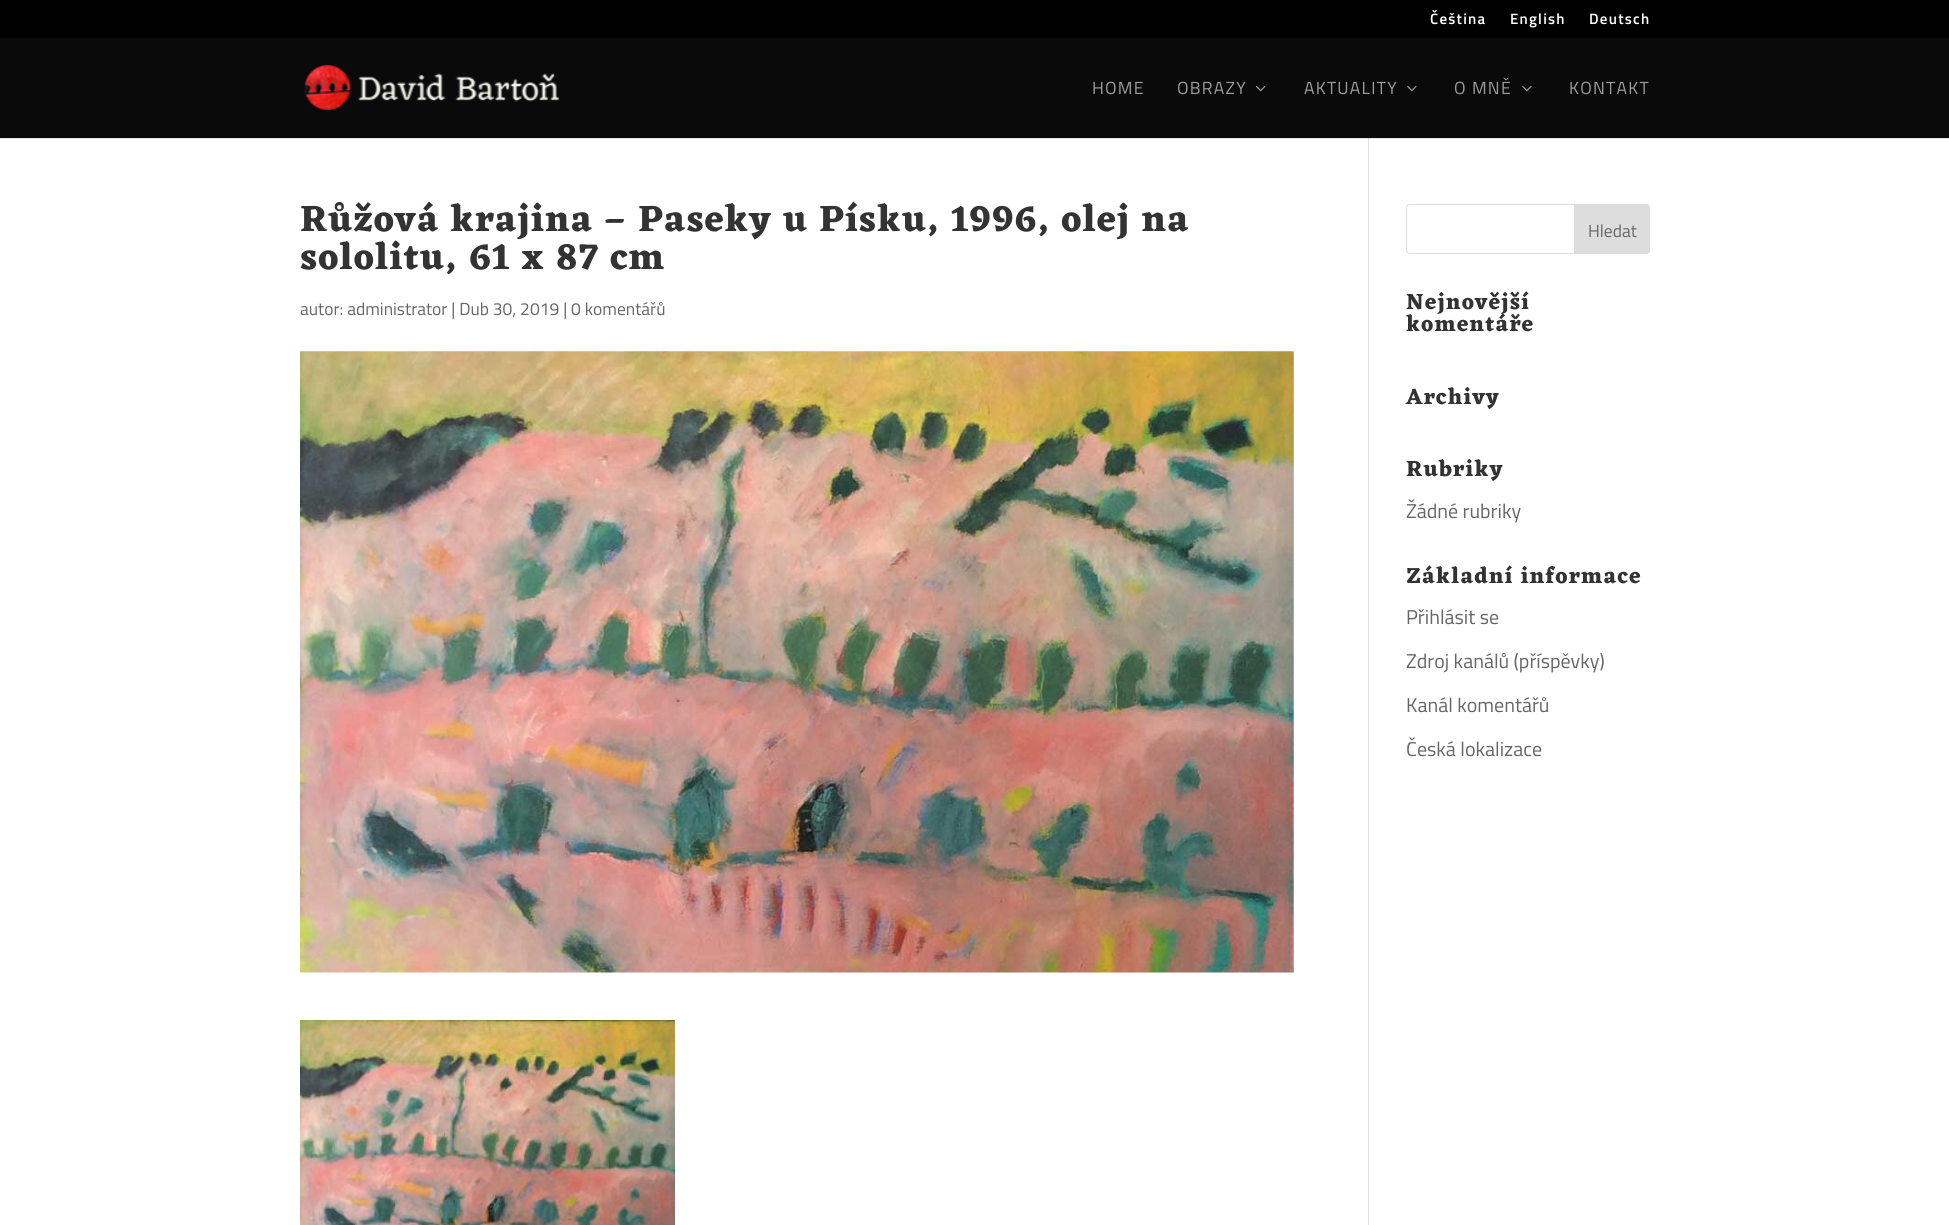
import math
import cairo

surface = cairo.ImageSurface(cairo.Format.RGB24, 1949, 1225)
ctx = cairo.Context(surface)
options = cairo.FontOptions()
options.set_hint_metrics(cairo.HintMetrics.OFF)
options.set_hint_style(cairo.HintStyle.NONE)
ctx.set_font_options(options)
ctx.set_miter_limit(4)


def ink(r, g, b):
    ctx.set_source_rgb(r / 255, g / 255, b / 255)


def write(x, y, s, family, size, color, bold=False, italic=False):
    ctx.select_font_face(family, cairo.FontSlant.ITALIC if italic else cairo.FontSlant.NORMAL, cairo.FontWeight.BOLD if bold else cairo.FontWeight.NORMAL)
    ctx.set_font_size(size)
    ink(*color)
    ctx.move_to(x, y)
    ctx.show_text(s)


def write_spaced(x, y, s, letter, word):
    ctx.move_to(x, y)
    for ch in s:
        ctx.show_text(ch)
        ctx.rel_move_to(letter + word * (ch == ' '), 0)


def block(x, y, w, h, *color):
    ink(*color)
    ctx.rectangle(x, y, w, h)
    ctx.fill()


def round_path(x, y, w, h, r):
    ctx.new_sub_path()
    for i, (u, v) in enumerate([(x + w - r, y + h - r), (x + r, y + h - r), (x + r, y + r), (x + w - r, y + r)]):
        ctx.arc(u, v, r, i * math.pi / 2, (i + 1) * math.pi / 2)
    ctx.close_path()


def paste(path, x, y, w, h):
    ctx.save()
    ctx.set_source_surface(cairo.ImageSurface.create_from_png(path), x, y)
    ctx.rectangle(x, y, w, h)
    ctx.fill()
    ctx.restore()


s1 = dict(family="Titillium Web", size=17.5, color=(102, 102, 102))
s2 = dict(family="Titillium Web", size=20, color=(102, 102, 102))

ink(255, 255, 255)
ctx.paint()
block(0, 0, 1949, 38, 0, 0, 0)
ctx.select_font_face("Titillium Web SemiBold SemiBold")
ctx.set_font_size(15)
ink(255, 255, 255)
write_spaced(1430, 24, "Čeština", 1.25, 0)
write_spaced(1510, 24, "English", 1.25, 0)
write_spaced(1589, 24, "Deutsch", 1.25, 0)
block(0, 138, 1949, 1, 230, 230, 230)
block(1368, 131, 1, 1094, 226, 226, 226)
block(0, 38, 1949, 100, 10, 10, 10)
paste("pic1.png", 304, 65, 255, 45)
ctx.select_font_face("Titillium Web")
ctx.set_font_size(17.5)
ink(157, 157, 157)
write_spaced(1092, 94, "HOME", 1.25, 0)
write_spaced(1177, 94, "OBRAZY", 1.25, 0)
paste("pic2.png", 1256, 86, 10, 6)
write_spaced(1304, 94, "AKTUALITY", 1.25, 0)
paste("pic3.png", 1407, 86, 10, 6)
write_spaced(1454, 94, "O MNĚ", 1.25, 0)
paste("pic3.png", 1522, 86, 10, 6)
write_spaced(1569, 94, "KONTAKT", 1.25, 0)
block(1368, 138, 1, 1, 203, 203, 203)
ctx.select_font_face("Eczar", cairo.FontSlant.NORMAL, cairo.FontWeight.BOLD)
ctx.set_font_size(37.5)
ink(51, 51, 51)
write_spaced(300, 231, "Růžová krajina – Paseky u Písku, 1996, olej na", 1.25, 0)
write_spaced(300, 269, "sololitu, 61 x 87 cm", 1.25, 0)
write(300, 315, "autor: administrator | Dub 30, 2019 | 0 komentářů", **s1)
paste("pic4.png", 300, 351, 994, 622)
paste("pic5.png", 300, 1020, 375, 205)
round_path(1406.5, 204.5, 243, 49, 3.5)
ink(221, 221, 221)
ctx.set_line_width(1)
ctx.stroke()
ctx.new_path()
ctx.move_to(1574.5, 204.5)
ctx.line_to(1646, 204.5)
ctx.curve_to(1648, 204.5, 1649.5, 206, 1649.5, 208)
ctx.line_to(1649.5, 250)
ctx.curve_to(1649.5, 252, 1648, 253.5, 1646, 253.5)
ctx.line_to(1574.5, 253.5)
ctx.close_path()
ctx.fill_preserve()
ctx.stroke()
write(1588, 237, "Hledat", **s1)
ctx.select_font_face("Eczar", cairo.FontSlant.NORMAL, cairo.FontWeight.BOLD)
ctx.set_font_size(22.5)
ink(51, 51, 51)
write_spaced(1406, 309, "Nejnovější", 1.25, 0)
write_spaced(1406, 331, "komentáře", 1.25, 0)
write_spaced(1406, 404, "Archivy", 1.25, 0)
write_spaced(1406, 476, "Rubriky", 1.25, 0)
write(1406, 518, "Žádné rubriky", **s2)
ctx.select_font_face("Eczar", cairo.FontSlant.NORMAL, cairo.FontWeight.BOLD)
ctx.set_font_size(22.5)
ink(51, 51, 51)
write_spaced(1406, 583, "Základní informace", 1.25, 0)
write(1406, 624, "Přihlásit se", **s2)
write(1406, 668, "Zdroj kanálů (příspěvky)", **s2)
write(1406, 712, "Kanál komentářů", **s2)
write(1406, 756, "Česká lokalizace", **s2)
surface.write_to_png("screenshot.png")
